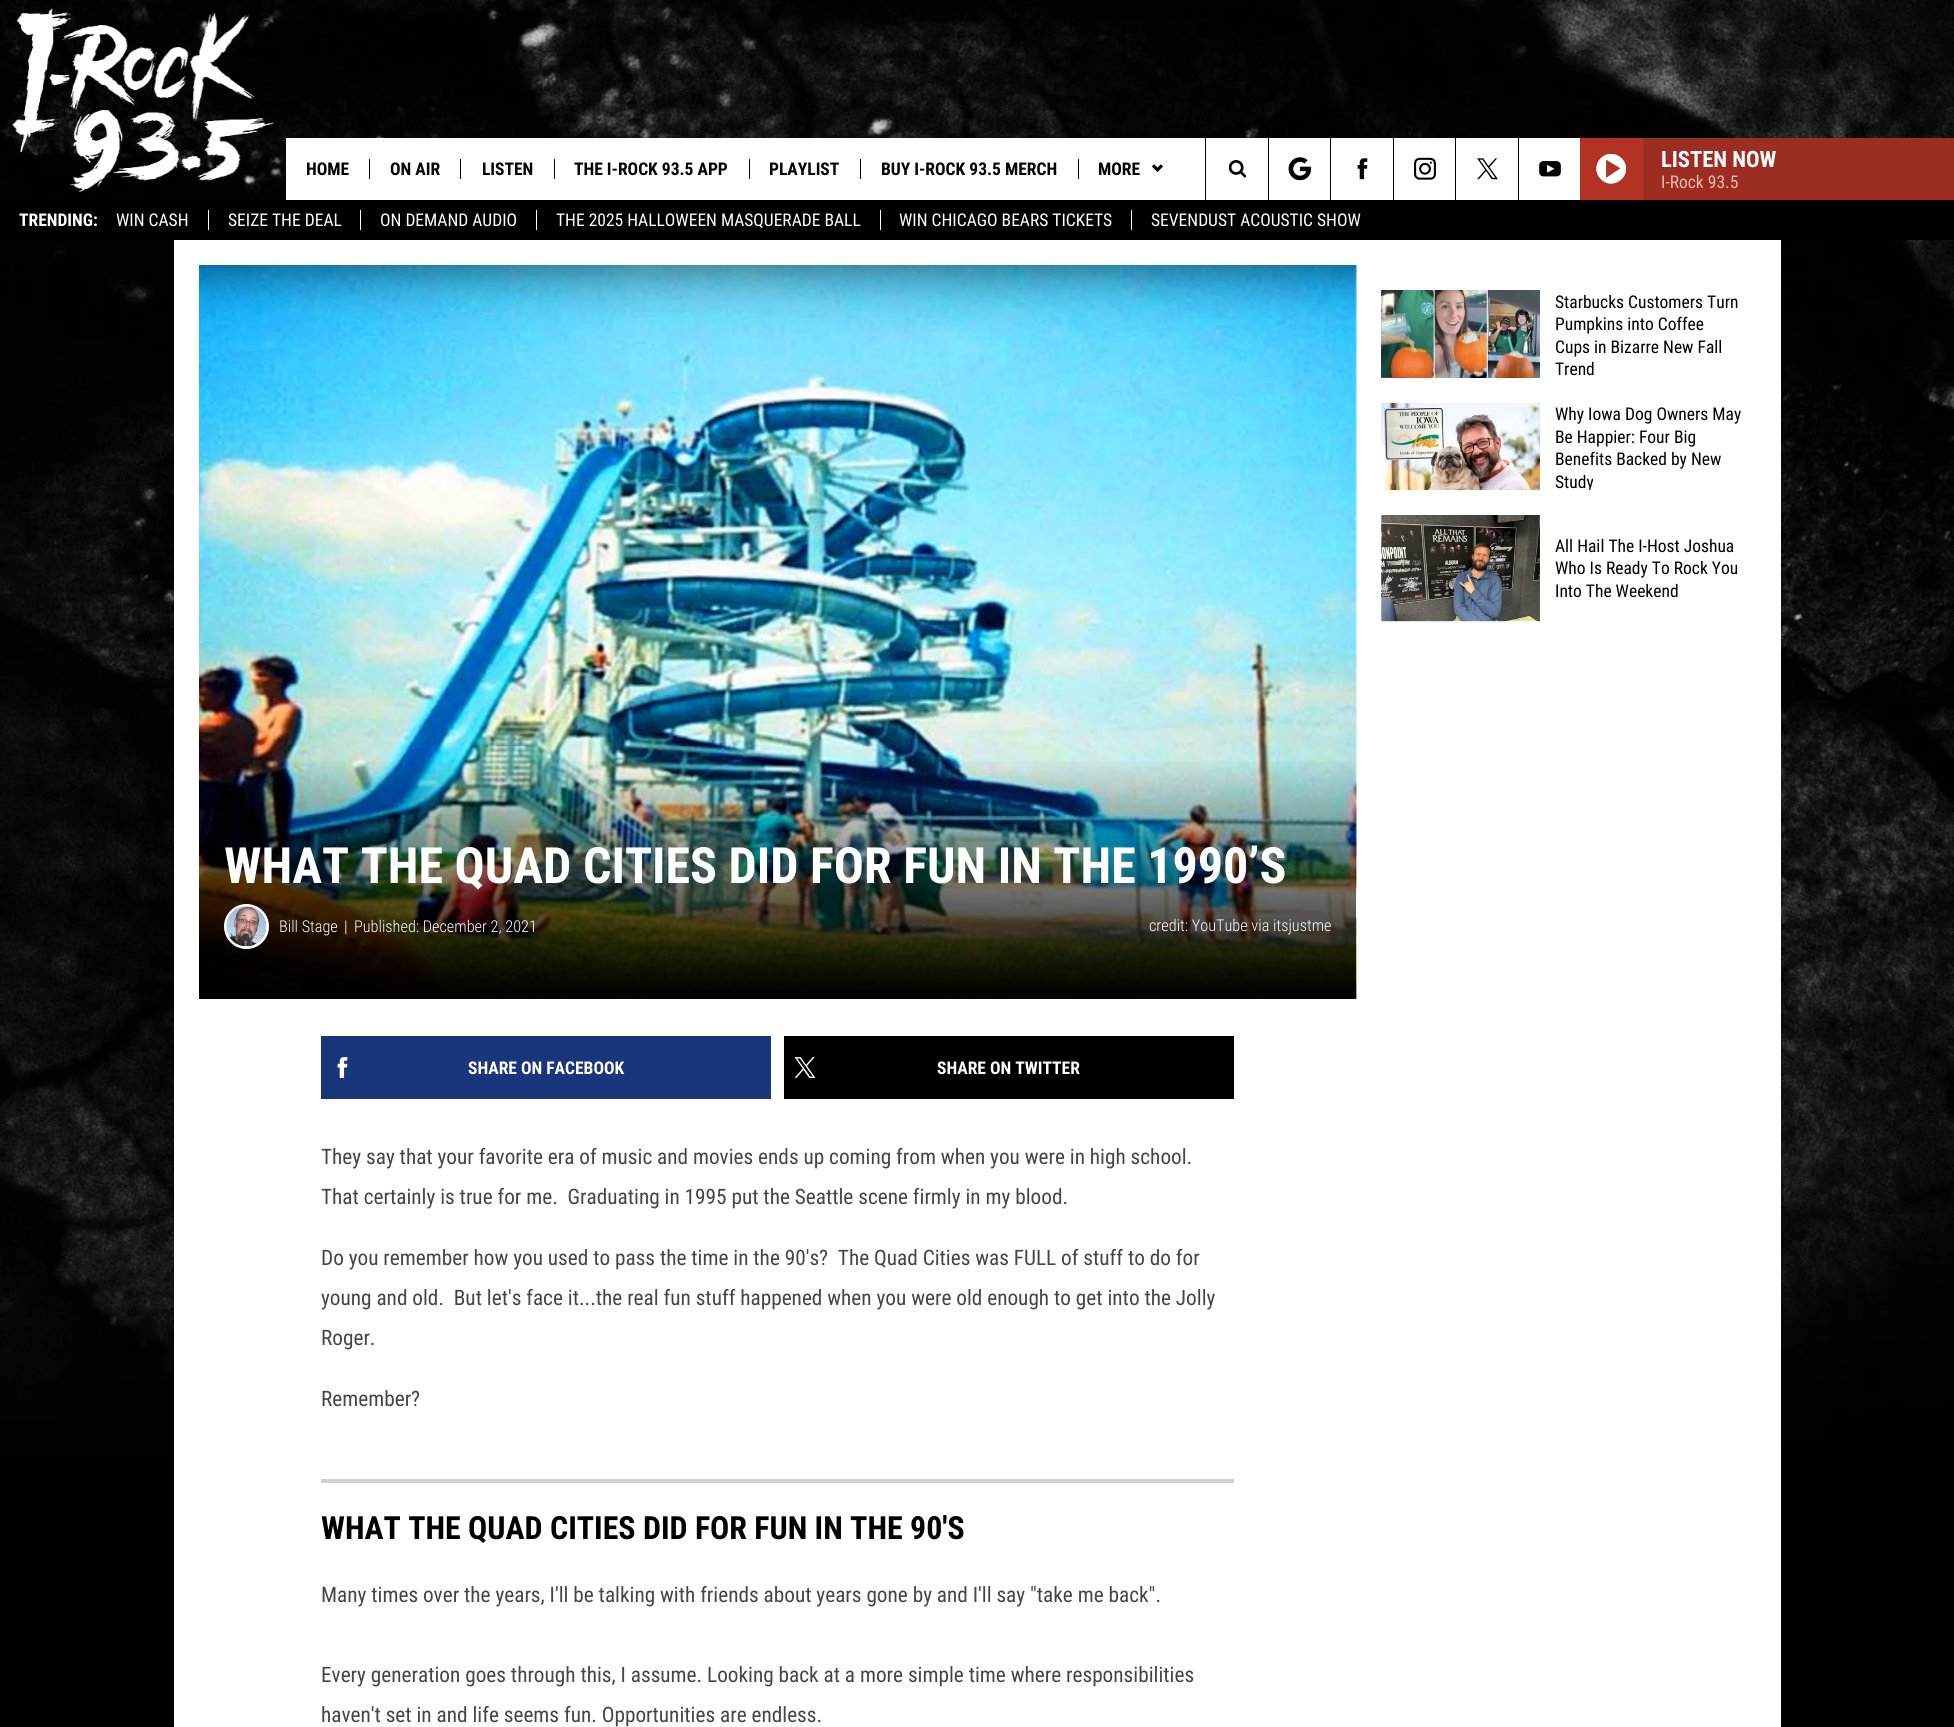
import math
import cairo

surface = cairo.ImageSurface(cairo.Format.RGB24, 1954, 1727)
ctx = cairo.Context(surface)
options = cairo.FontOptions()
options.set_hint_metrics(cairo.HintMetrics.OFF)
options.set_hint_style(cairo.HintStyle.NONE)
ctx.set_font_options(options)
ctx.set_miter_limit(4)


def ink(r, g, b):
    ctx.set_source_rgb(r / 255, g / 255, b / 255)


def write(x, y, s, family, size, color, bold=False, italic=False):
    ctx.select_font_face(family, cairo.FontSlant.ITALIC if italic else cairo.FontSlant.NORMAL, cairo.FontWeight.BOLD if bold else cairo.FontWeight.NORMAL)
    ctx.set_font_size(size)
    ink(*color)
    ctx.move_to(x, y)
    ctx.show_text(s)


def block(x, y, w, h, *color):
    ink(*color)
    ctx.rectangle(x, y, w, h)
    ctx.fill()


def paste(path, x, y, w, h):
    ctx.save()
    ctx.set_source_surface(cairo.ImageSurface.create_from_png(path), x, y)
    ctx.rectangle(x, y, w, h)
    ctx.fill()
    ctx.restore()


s1 = dict(family="Roboto Condensed", size=17.5, color=(0, 0, 0), bold=True)
s2 = dict(family="Roboto Condensed", size=22.5, color=(255, 255, 255), bold=True)
s3 = dict(family="Roboto Condensed", size=17.5, color=(240, 185, 178))
s4 = dict(family="Roboto Condensed", size=17.5, color=(255, 255, 255), bold=True)
s5 = dict(family="Roboto Condensed", size=17.5, color=(255, 255, 255))
s6 = dict(family="Roboto Condensed", size=17.5, color=(0, 0, 0))
s7 = dict(family="Roboto Condensed", size=50, color=(255, 255, 255), bold=True)
s8 = dict(family="Roboto Condensed Light", size=16.25, color=(255, 255, 255))
s9 = dict(family="Roboto Condensed", size=21.25, color=(69, 68, 74))
s10 = dict(family="Roboto Condensed", size=31.9, color=(0, 0, 0), bold=True)

ink(0, 0, 0)
ctx.paint()
paste("pic1.png", 0, 240, 1954, 1216)
paste("pic2.png", 0, 0, 1954, 200)
paste("pic3.png", 12, 8, 262, 185)
block(286, 138, 1294, 62, 255, 255, 255)
write(306, 175, "HOME", **s1)
block(369, 159, 1, 20, 0, 0, 0)
write(390, 175, "ON AIR", **s1)
block(460, 159, 1, 20, 0, 0, 0)
write(482, 175, "LISTEN", **s1)
block(554, 159, 1, 20, 0, 0, 0)
write(574, 175, "THE I-ROCK 93.5 APP", **s1)
block(749, 159, 1, 20, 0, 0, 0)
write(769, 175, "PLAYLIST", **s1)
block(860, 159, 1, 20, 0, 0, 0)
write(881, 175, "BUY I-ROCK 93.5 MERCH", **s1)
block(1078, 159, 1, 20, 0, 0, 0)
write(1098, 175, "MORE", **s1)
paste("pic4.png", 1152, 164, 11, 8)
block(1205, 138, 1, 62, 0, 0, 0)
paste("pic5.png", 1229, 160, 17, 18)
block(1268, 138, 1, 62, 0, 0, 0)
paste("pic6.png", 1288, 157, 23, 24)
block(1330, 138, 1, 62, 0, 0, 0)
paste("pic7.png", 1357, 158, 11, 22)
block(1393, 138, 1, 62, 0, 0, 0)
paste("pic8.png", 1414, 157, 22, 23)
block(1455, 138, 1, 62, 0, 0, 0)
paste("pic9.png", 1477, 158, 21, 22)
block(1518, 138, 1, 62, 0, 0, 0)
paste("pic10.png", 1539, 161, 22, 16)
block(1580, 138, 63, 62, 178, 51, 36)
paste("pic11.png", 1596, 154, 30, 30)
block(1643, 138, 311, 62, 157, 45, 32)
write(1661, 167, "LISTEN NOW", **s2)
write(1661, 188, "I-Rock 93.5", **s3)
write(19, 226, "TRENDING:", **s4)
write(116, 226, "WIN CASH", **s5)
write(228, 226, "SEIZE THE DEAL", **s5)
block(208, 210, 1, 20, 255, 255, 255)
write(380, 226, "ON DEMAND AUDIO", **s5)
block(360, 210, 1, 20, 255, 255, 255)
write(556, 226, "THE 2025 HALLOWEEN MASQUERADE BALL", **s5)
block(536, 210, 1, 20, 255, 255, 255)
write(899, 226, "WIN CHICAGO BEARS TICKETS", **s5)
block(880, 210, 1, 20, 255, 255, 255)
write(1151, 226, "SEVENDUST ACOUSTIC SHOW", **s5)
block(1131, 210, 1, 20, 255, 255, 255)
block(174, 240, 1607, 1487, 255, 255, 255)
paste("pic12.png", 1381, 290, 159, 88)
write(1555, 308, "Starbucks Customers Turn", **s6)
write(1555, 330, "Pumpkins into Coffee", **s6)
write(1555, 353, "Cups in Bizarre New Fall", **s6)
write(1555, 375, "Trend", **s6)
paste("pic13.png", 1381, 403, 159, 87)
write(1555, 420, "Why Iowa Dog Owners May", **s6)
write(1555, 443, "Be Happier: Four Big", **s6)
write(1555, 465, "Benefits Backed by New", **s6)
ctx.save()
ctx.rectangle(1540, 403, 216, 87)
ctx.clip()
write(1555, 488, "Study", **s6)
ctx.restore()
paste("pic14.png", 1381, 515, 159, 107)
write(1555, 552, "All Hail The I-Host Joshua", **s6)
write(1555, 574, "Who Is Ready To Rock You", **s6)
write(1555, 597, "Into The Weekend", **s6)
paste("pic15.png", 199, 265, 1158, 734)
gradient = cairo.LinearGradient(778, 756, 778, 999)
gradient.add_color_stop_rgba(0, 0, 0, 0, 0)
gradient.add_color_stop_rgba(1, 0, 0, 0, 1)
ctx.set_source(gradient)
ctx.rectangle(199, 761, 1157, 238)
ctx.fill()
write(224, 883, "WHAT THE QUAD CITIES DID FOR FUN IN THE 1990’S", **s7)
ctx.new_path()
ctx.arc(246.5, 926.5, 21, 0, 2 * math.pi)
ctx.set_line_width(3)
ctx.stroke()
paste("pic16.png", 226, 906, 41, 41)
write(279, 932, "Bill Stage", **s8)
write(344, 932, "|", **s8)
write(354, 932, "Published: December 2, 2021", **s8)
write(1149, 931, "credit: YouTube via itsjustme", **s8)
block(321, 1036, 450, 63, 25, 54, 124)
paste("pic17.png", 337, 1057, 11, 21)
write(468, 1074, "SHARE ON FACEBOOK", **s4)
block(784, 1036, 450, 63, 0, 0, 0)
paste("pic18.png", 794, 1057, 22, 21)
write(937, 1074, "SHARE ON TWITTER", **s4)
write(321, 1164, "They say that your favorite era of music and movies ends up coming from when you were in high school.", **s9)
write(321, 1204, "That certainly is true for me.  Graduating in 1995 put the Seattle scene firmly in my blood.", **s9)
write(321, 1265, "Do you remember how you used to pass the time in the 90's?  The Quad Cities was FULL of stuff to do for", **s9)
write(321, 1305, "young and old.  But let's face it...the real fun stuff happened when you were old enough to get into the Jolly", **s9)
write(321, 1345, "Roger.", **s9)
write(321, 1406, "Remember?", **s9)
block(321, 1479, 913, 4, 209, 208, 210)
write(321, 1539, "WHAT THE QUAD CITIES DID FOR FUN IN THE 90'S", **s10)
write(321, 1602, "Many times over the years, I'll be talking with friends about years gone by and I'll say \"take me back\".", **s9)
write(321, 1682, "Every generation goes through this, I assume. Looking back at a more simple time where responsibilities", **s9)
write(321, 1722, "haven't set in and life seems fun. Opportunities are endless.", **s9)
surface.write_to_png("screenshot.png")
